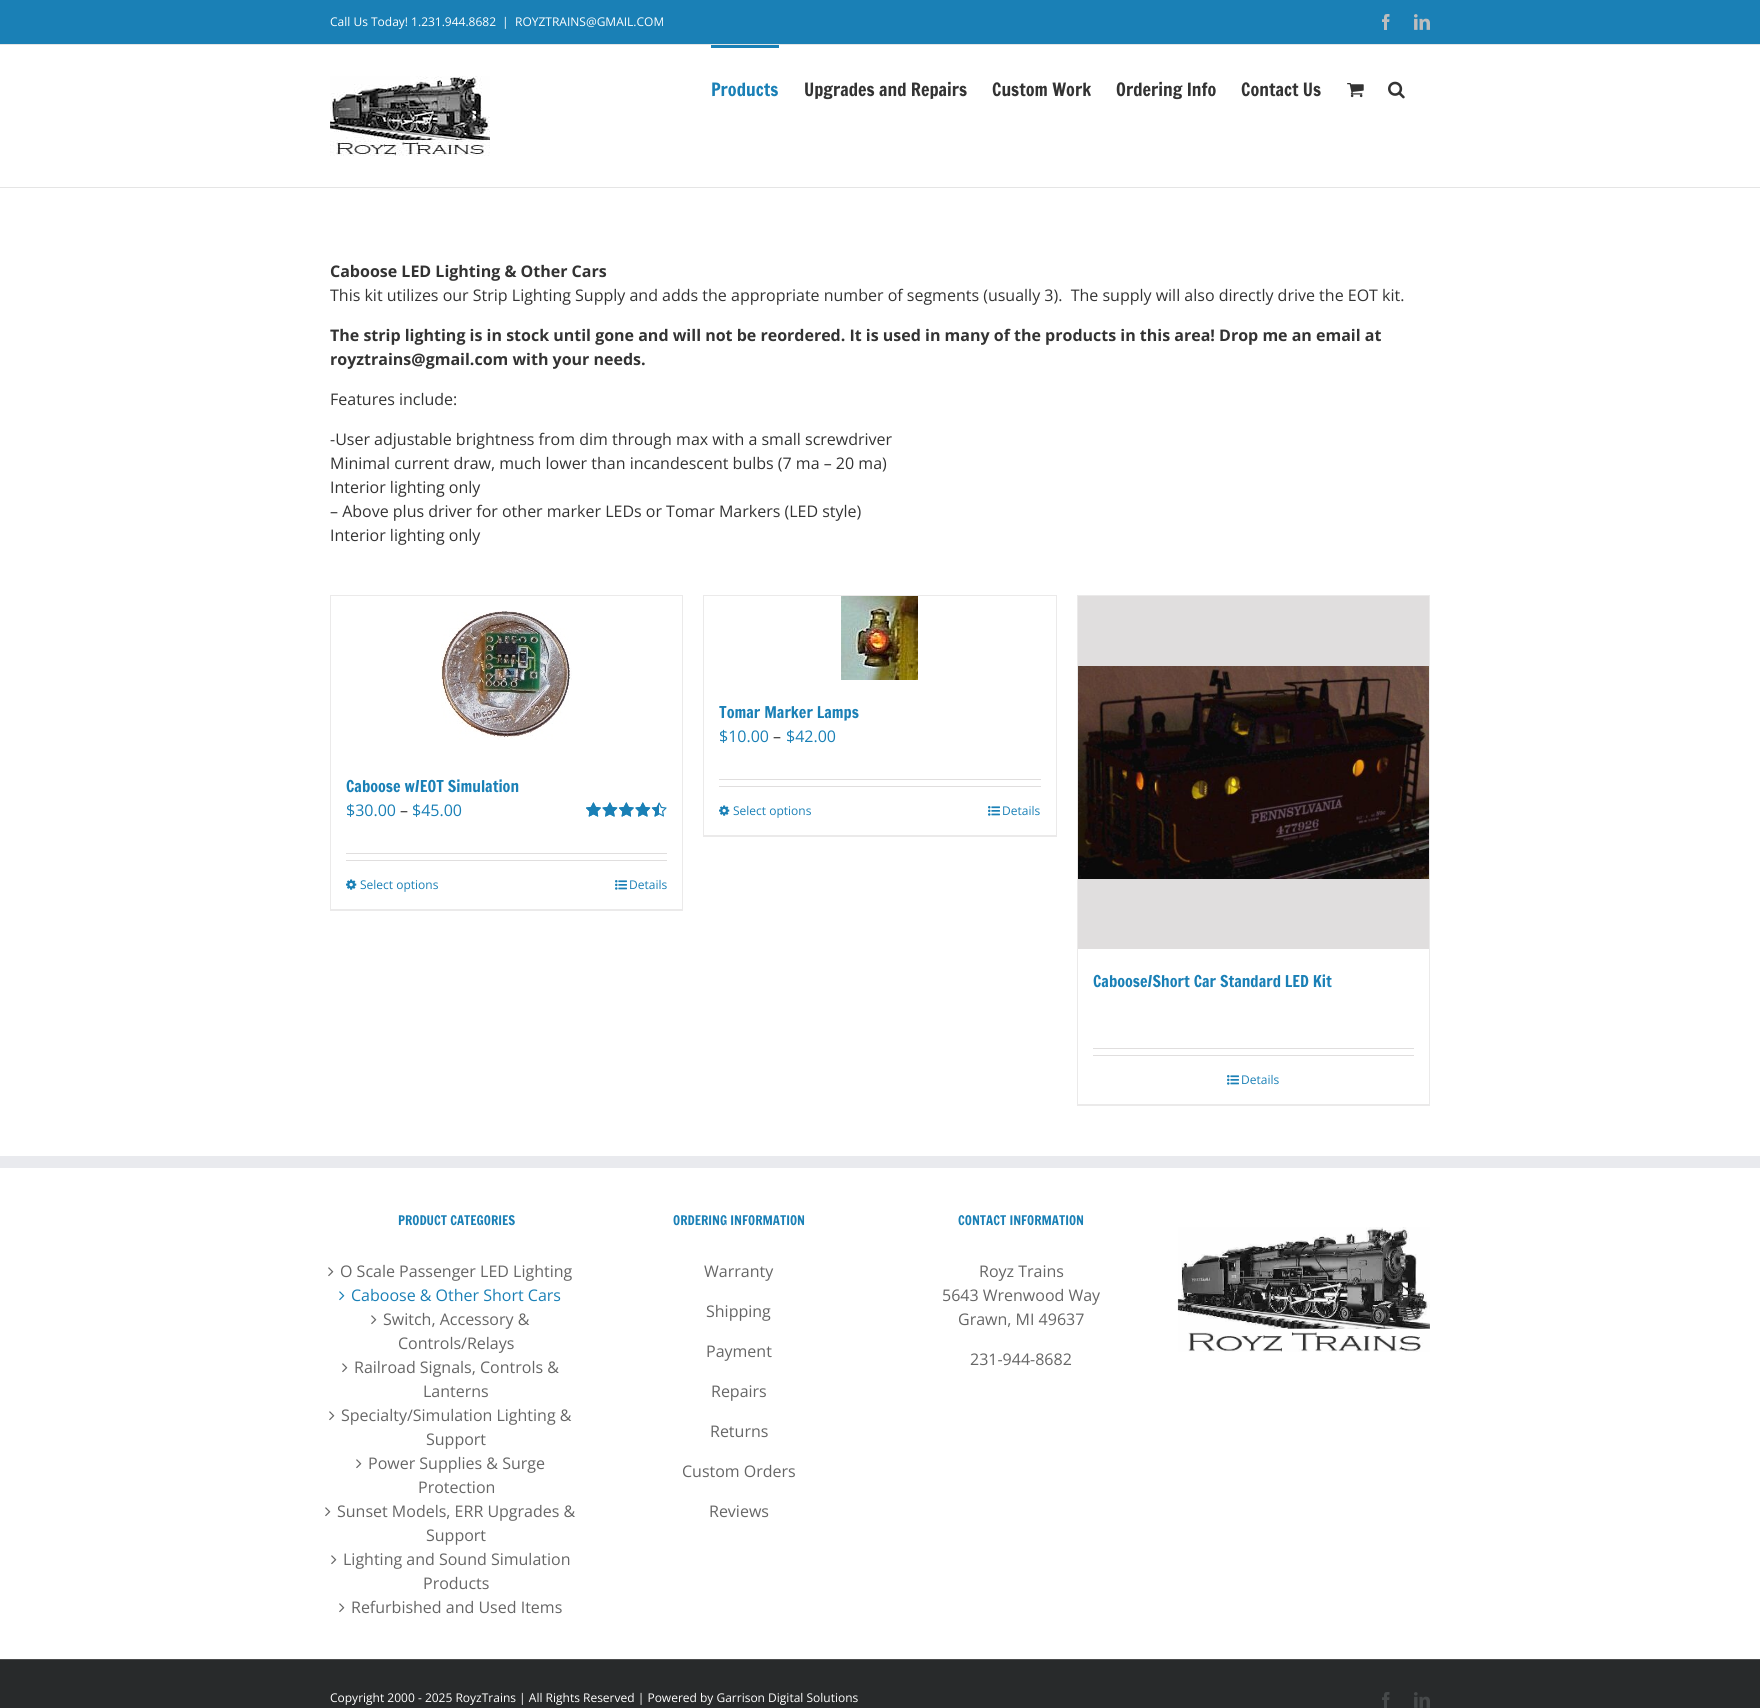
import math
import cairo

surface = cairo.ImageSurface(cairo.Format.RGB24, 1760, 1708)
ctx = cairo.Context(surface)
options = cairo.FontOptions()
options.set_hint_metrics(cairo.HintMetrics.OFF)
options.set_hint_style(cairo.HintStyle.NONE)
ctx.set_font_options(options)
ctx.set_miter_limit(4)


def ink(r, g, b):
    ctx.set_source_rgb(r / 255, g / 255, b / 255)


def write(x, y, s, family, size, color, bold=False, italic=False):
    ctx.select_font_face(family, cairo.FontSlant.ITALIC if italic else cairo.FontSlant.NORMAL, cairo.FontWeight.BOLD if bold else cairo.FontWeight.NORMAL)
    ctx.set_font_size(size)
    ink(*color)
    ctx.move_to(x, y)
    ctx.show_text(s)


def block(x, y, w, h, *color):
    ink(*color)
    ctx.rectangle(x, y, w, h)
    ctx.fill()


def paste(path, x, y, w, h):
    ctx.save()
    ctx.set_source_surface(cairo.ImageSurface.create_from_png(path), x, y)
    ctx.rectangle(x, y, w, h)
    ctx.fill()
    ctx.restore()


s1 = dict(family="Open Sans", size=12, color=(255, 255, 255))
s2 = dict(family="Francois One", size=18, color=(26, 128, 182))
s3 = dict(family="Francois One", size=18, color=(51, 51, 51))
s4 = dict(family="Open Sans", size=16, color=(51, 51, 51), bold=True)
s5 = dict(family="Open Sans", size=16, color=(51, 51, 51))
s6 = dict(family="Francois One", size=16, color=(26, 128, 182))
s7 = dict(family="Open Sans", size=16, color=(26, 128, 182))
s8 = dict(family="Open Sans", size=12, color=(26, 128, 182))
s9 = dict(family="Francois One", size=13, color=(26, 128, 182))
s10 = dict(family="Open Sans", size=16, color=(102, 102, 102))

ink(255, 255, 255)
ctx.paint()
block(0, 0, 1760, 44, 26, 128, 182)
block(0, 44, 1760, 1, 229, 229, 229)
write(330, 26, "Call Us Today! 1.231.944.8682", **s1)
write(502, 26, "|", **s1)
write(515, 26, "ROYZTRAINS@GMAIL.COM", **s1)
paste("pic1.png", 1382, 14, 8, 16)
paste("pic2.png", 1414, 14, 16, 16)
block(0, 187, 1760, 1, 229, 229, 229)
paste("pic3.png", 330, 76, 160, 80)
block(711, 45, 68, 3, 26, 128, 182)
write(711, 96, "Products", **s2)
write(804, 96, "Upgrades and Repairs", **s3)
write(992, 96, "Custom Work", **s3)
write(1116, 96, "Ordering Info", **s3)
write(1241, 96, "Contact Us", **s3)
paste("pic4.png", 1347, 83, 17, 15)
paste("pic5.png", 1388, 81, 17, 18)
write(330, 277, "Caboose LED Lighting & Other Cars", **s4)
write(330, 301, "This kit utilizes our Strip Lighting Supply and adds the appropriate number of segments (usually 3).  The supply will also directly drive the EOT kit.", **s5)
write(330, 341, "The strip lighting is in stock until gone and will not be reordered. It is used in many of the products in this area! Drop me an email at", **s4)
write(330, 365, "royztrains@gmail.com with your needs.", **s4)
write(330, 405, "Features include:", **s5)
write(330, 445, "-User adjustable brightness from dim through max with a small screwdriver", **s5)
write(330, 469, "Minimal current draw, much lower than incandescent bulbs (7 ma – 20 ma)", **s5)
write(330, 493, "Interior lighting only", **s5)
write(330, 517, "– Above plus driver for other marker LEDs or Tomar Markers (LED style)", **s5)
write(330, 541, "Interior lighting only", **s5)
block(703, 595, 354, 1, 235, 234, 234)
block(1056, 595, 1, 242, 235, 234, 234)
block(703, 835, 354, 2, 235, 234, 234)
block(703, 595, 1, 242, 235, 234, 234)
paste("pic6.png", 841, 596, 77, 84)
write(719, 718, "Tomar Marker Lamps", **s6)
write(719, 742, "$10.00", **s7)
write(773, 742, "–", **s5)
write(786, 742, "$42.00", **s7)
block(719, 779, 322, 1, 224, 222, 222)
block(719, 786, 322, 1, 224, 222, 222)
paste("pic7.png", 719, 805, 11, 11)
write(733, 815, "Select options", **s8)
paste("pic8.png", 988, 806, 12, 10)
write(1002, 815, "Details", **s8)
block(330, 595, 353, 1, 235, 234, 234)
block(682, 595, 1, 316, 235, 234, 234)
block(330, 909, 353, 2, 235, 234, 234)
block(330, 595, 1, 316, 235, 234, 234)
paste("pic9.png", 441, 610, 131, 130)
write(346, 792, "Caboose w/EOT Simulation", **s6)
write(346, 816, "$30.00", **s7)
write(400, 816, "–", **s5)
write(412, 816, "$45.00", **s7)
paste("pic10.png", 586, 802, 81, 15)
paste("pic11.png", 586, 802, 73, 15)
block(346, 853, 321, 1, 224, 222, 222)
block(346, 860, 321, 1, 224, 222, 222)
paste("pic7.png", 346, 879, 11, 11)
write(360, 889, "Select options", **s8)
paste("pic8.png", 615, 880, 12, 10)
write(629, 889, "Details", **s8)
block(1077, 595, 353, 1, 235, 234, 234)
block(1429, 595, 1, 511, 235, 234, 234)
block(1077, 1104, 353, 2, 235, 234, 234)
block(1077, 595, 1, 511, 235, 234, 234)
block(1078, 596, 351, 353, 224, 222, 222)
paste("pic12.png", 1078, 666, 351, 213)
write(1093, 987, "Caboose/Short Car Standard LED Kit", **s6)
block(1093, 1048, 321, 1, 224, 222, 222)
block(1093, 1055, 321, 1, 224, 222, 222)
paste("pic8.png", 1227, 1075, 12, 10)
write(1241, 1084, "Details", **s8)
block(0, 1156, 1760, 12, 233, 234, 238)
write(398, 1225, "PRODUCT CATEGORIES", **s9)
paste("pic13.png", 328, 1267, 6, 10)
write(340, 1277, "O Scale Passenger LED Lighting", **s10)
paste("pic14.png", 339, 1291, 6, 10)
write(351, 1301, "Caboose & Other Short Cars", **s7)
paste("pic13.png", 371, 1315, 6, 10)
write(383, 1325, "Switch, Accessory &", **s10)
write(398, 1349, "Controls/Relays", **s10)
paste("pic13.png", 342, 1363, 6, 10)
write(354, 1373, "Railroad Signals, Controls &", **s10)
write(423, 1397, "Lanterns", **s10)
paste("pic13.png", 329, 1411, 6, 10)
write(341, 1421, "Specialty/Simulation Lighting &", **s10)
write(426, 1445, "Support", **s10)
paste("pic13.png", 356, 1459, 6, 10)
write(368, 1469, "Power Supplies & Surge", **s10)
write(418, 1493, "Protection", **s10)
paste("pic13.png", 325, 1507, 6, 10)
write(337, 1517, "Sunset Models, ERR Upgrades &", **s10)
write(426, 1541, "Support", **s10)
paste("pic13.png", 331, 1555, 6, 10)
write(343, 1565, "Lighting and Sound Simulation", **s10)
write(423, 1589, "Products", **s10)
paste("pic13.png", 339, 1603, 6, 10)
write(351, 1613, "Refurbished and Used Items", **s10)
write(673, 1225, "ORDERING INFORMATION", **s9)
write(704, 1277, "Warranty", **s10)
write(706, 1317, "Shipping", **s10)
write(706, 1357, "Payment", **s10)
write(711, 1397, "Repairs", **s10)
write(710, 1437, "Returns", **s10)
write(682, 1477, "Custom Orders", **s10)
write(709, 1517, "Reviews", **s10)
write(958, 1225, "CONTACT INFORMATION", **s9)
write(979, 1277, "Royz Trains", **s10)
write(942, 1301, "5643 Wrenwood Way", **s10)
write(958, 1325, "Grawn, MI 49637", **s10)
write(970, 1365, "231-944-8682", **s10)
paste("pic15.png", 1177, 1227, 253, 125)
block(0, 1660, 1760, 48, 40, 42, 43)
block(0, 1659, 1760, 1, 75, 76, 77)
write(330, 1702, "Copyright 2000 - 2025 RoyzTrains | All Rights Reserved | Powered by Garrison Digital Solutions", **s1)
paste("pic16.png", 1382, 1692, 8, 16)
paste("pic17.png", 1414, 1692, 16, 16)
surface.write_to_png("screenshot.png")
